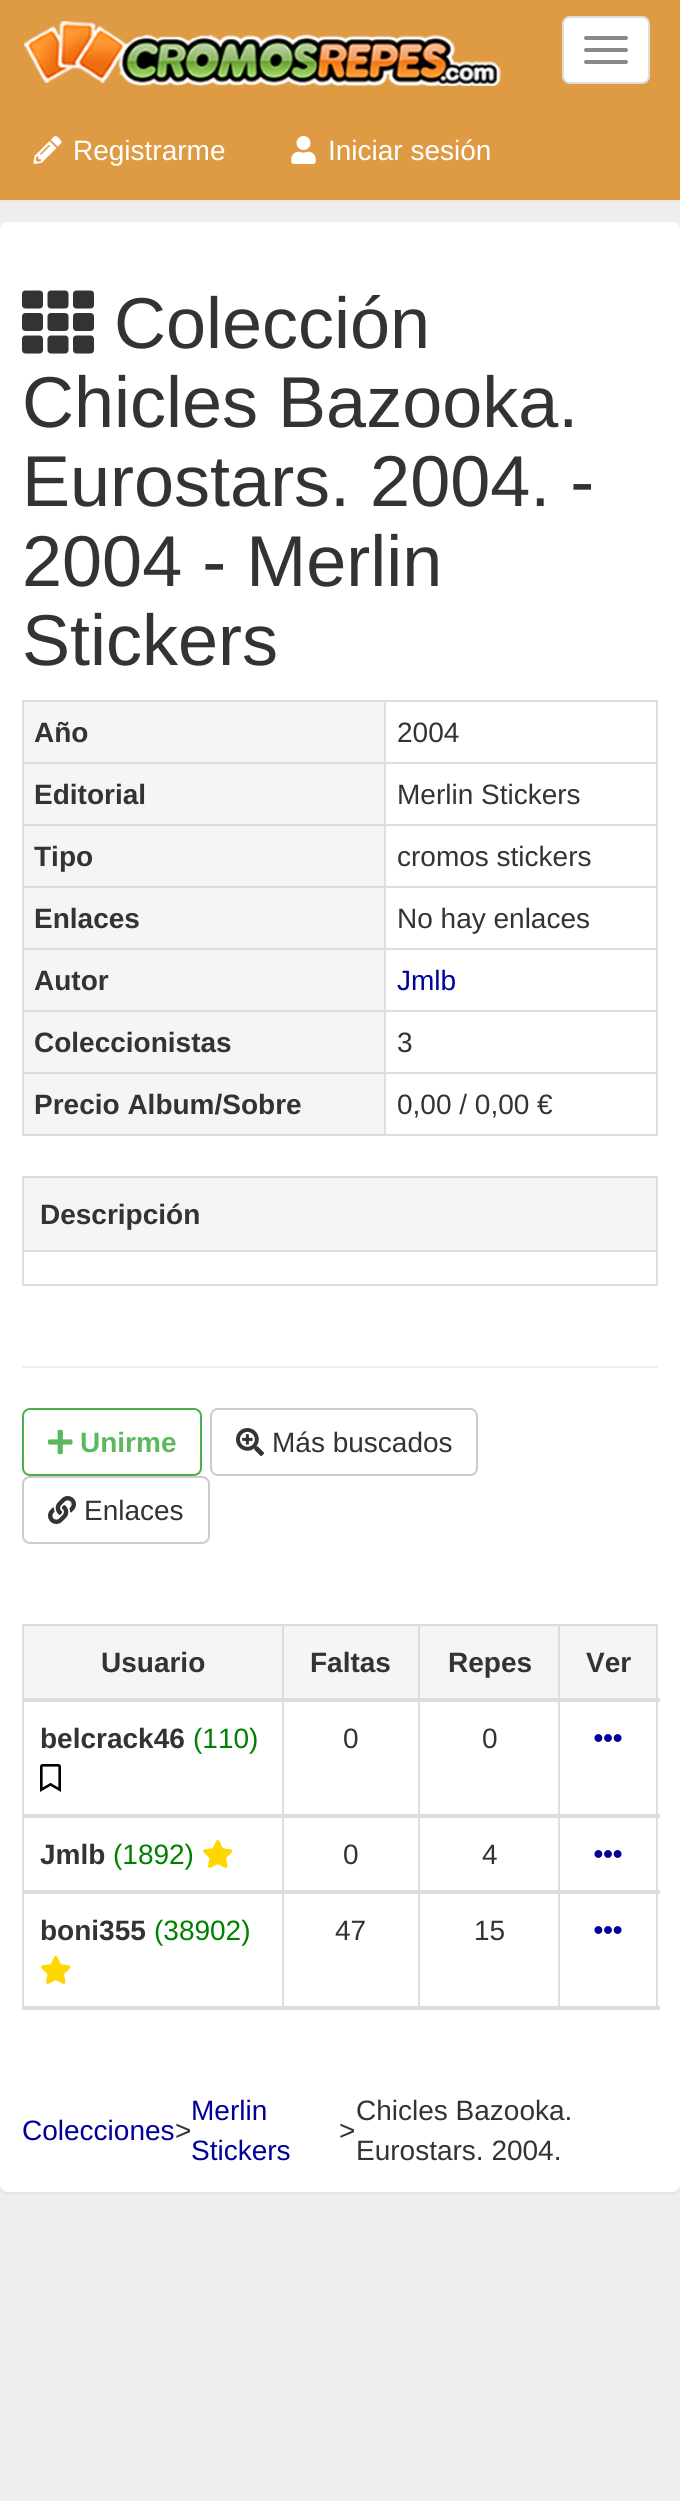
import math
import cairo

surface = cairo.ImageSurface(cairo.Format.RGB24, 680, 2501)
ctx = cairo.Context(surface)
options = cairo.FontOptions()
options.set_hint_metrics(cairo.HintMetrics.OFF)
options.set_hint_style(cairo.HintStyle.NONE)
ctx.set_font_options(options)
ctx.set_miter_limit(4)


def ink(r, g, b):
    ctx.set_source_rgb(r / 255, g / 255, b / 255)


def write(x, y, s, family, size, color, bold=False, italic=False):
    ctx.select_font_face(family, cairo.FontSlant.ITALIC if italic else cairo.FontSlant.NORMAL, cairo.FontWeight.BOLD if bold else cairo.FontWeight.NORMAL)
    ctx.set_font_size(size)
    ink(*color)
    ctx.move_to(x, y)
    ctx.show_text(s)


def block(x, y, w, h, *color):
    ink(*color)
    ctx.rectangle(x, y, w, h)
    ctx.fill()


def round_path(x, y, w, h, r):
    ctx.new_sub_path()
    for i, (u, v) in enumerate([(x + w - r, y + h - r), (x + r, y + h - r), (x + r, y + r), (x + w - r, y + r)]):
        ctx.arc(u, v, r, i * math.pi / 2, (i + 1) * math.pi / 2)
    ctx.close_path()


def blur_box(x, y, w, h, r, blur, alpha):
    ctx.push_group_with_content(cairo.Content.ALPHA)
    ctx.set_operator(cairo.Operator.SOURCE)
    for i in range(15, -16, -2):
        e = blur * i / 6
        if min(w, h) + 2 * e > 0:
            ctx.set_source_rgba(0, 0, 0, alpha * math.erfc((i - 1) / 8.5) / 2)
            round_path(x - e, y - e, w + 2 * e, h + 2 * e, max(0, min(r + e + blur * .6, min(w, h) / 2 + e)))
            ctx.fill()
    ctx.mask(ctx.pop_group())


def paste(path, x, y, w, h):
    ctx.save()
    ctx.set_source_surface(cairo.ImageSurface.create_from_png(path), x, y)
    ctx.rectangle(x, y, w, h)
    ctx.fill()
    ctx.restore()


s1 = dict(family="Liberation Sans", size=28, color=(255, 255, 255))
s2 = dict(family="Liberation Sans", size=72, color=(51, 51, 51))
s3 = dict(family="Liberation Sans", size=28, color=(51, 51, 51), bold=True)
s4 = dict(family="Liberation Sans", size=28, color=(51, 51, 51))
s5 = dict(family="Liberation Sans", size=28, color=(0, 0, 153))
s6 = dict(family="Liberation Sans", size=28, color=(92, 184, 92), bold=True)
s7 = dict(family="Liberation Sans", size=28, color=(0, 128, 0))

ink(238, 238, 238)
ctx.paint()
block(0, 0, 680, 200, 223, 155, 68)
block(0, 200, 680, 2, 231, 231, 231)
paste("pic1.png", 24, 21, 477, 65)
ink(255, 255, 255)
round_path(563, 17, 86, 66, 7)
ctx.fill_preserve()
ink(221, 221, 221)
ctx.stroke()
ink(136, 136, 136)
round_path(584, 36, 44, 4, 2)
ctx.fill()
round_path(584, 48, 44, 4, 2)
ctx.fill()
round_path(584, 60, 44, 4, 2)
ctx.fill()
paste("pic2.png", 33, 136, 29, 28)
write(73, 160, "Registrarme", **s1)
paste("pic3.png", 291, 136, 25, 28)
write(328, 160, "Iniciar sesión", **s1)
ink(0, 0, 0)
blur_box(0, 224, 680, 1970, 8, 1, 0.05)
ink(255, 255, 255)
round_path(0, 222, 680, 1970, 8)
ctx.fill()
paste("pic4.png", 22, 290, 72, 64)
write(114, 348, "Colección", **s2)
write(22, 427, "Chicles Bazooka.", **s2)
write(22, 506, "Eurostars. 2004. -", **s2)
write(22, 586, "2004 - Merlin", **s2)
write(22, 665, "Stickers", **s2)
block(22, 700, 636, 2, 221, 221, 221)
block(656, 700, 2, 436, 221, 221, 221)
block(22, 1134, 636, 2, 221, 221, 221)
block(22, 700, 2, 436, 221, 221, 221)
block(24, 702, 360, 60, 245, 245, 245)
write(34, 742, "Año", **s3)
block(384, 762, 274, 2, 221, 221, 221)
block(384, 824, 274, 2, 221, 221, 221)
block(384, 886, 274, 2, 221, 221, 221)
block(384, 948, 274, 2, 221, 221, 221)
block(384, 1010, 274, 2, 221, 221, 221)
block(384, 1072, 274, 2, 221, 221, 221)
block(384, 1072, 2, 64, 221, 221, 221)
block(22, 1072, 364, 2, 221, 221, 221)
block(384, 1010, 2, 64, 221, 221, 221)
block(22, 1010, 364, 2, 221, 221, 221)
block(384, 948, 2, 64, 221, 221, 221)
block(22, 948, 364, 2, 221, 221, 221)
block(384, 886, 2, 64, 221, 221, 221)
block(22, 886, 364, 2, 221, 221, 221)
block(384, 824, 2, 64, 221, 221, 221)
block(22, 824, 364, 2, 221, 221, 221)
block(384, 762, 2, 64, 221, 221, 221)
block(22, 762, 364, 2, 221, 221, 221)
block(384, 700, 2, 64, 221, 221, 221)
write(397, 742, "2004", **s4)
block(24, 764, 360, 60, 245, 245, 245)
write(34, 804, "Editorial", **s3)
write(397, 804, "Merlin Stickers", **s4)
block(24, 826, 360, 60, 245, 245, 245)
write(34, 866, "Tipo", **s3)
write(397, 866, "cromos stickers", **s4)
block(24, 888, 360, 60, 245, 245, 245)
write(34, 928, "Enlaces", **s3)
write(397, 928, "No hay enlaces", **s4)
block(24, 950, 360, 60, 245, 245, 245)
write(34, 990, "Autor", **s3)
write(397, 990, "Jmlb", **s5)
block(24, 1012, 360, 60, 245, 245, 245)
write(34, 1052, "Coleccionistas", **s3)
write(397, 1052, "3", **s4)
block(24, 1074, 360, 60, 245, 245, 245)
write(34, 1114, "Precio Album/Sobre", **s3)
write(397, 1114, "0,00 / 0,00 €", **s4)
block(22, 1176, 636, 2, 221, 221, 221)
block(656, 1176, 2, 110, 221, 221, 221)
block(22, 1284, 636, 2, 221, 221, 221)
block(22, 1176, 2, 110, 221, 221, 221)
block(24, 1178, 632, 72, 245, 245, 245)
write(40, 1224, "Descripción", **s3)
block(22, 1250, 636, 2, 221, 221, 221)
block(22, 1366, 636, 2, 238, 238, 238)
round_path(23, 1409, 178, 66, 7)
ink(76, 174, 76)
ctx.stroke()
paste("pic5.png", 48, 1429, 25, 26)
write(80, 1452, "Unirme", **s6)
round_path(211, 1409, 266, 66, 7)
ink(204, 204, 204)
ctx.stroke()
paste("pic6.png", 236, 1428, 28, 28)
write(272, 1452, "Más buscados", **s4)
round_path(23, 1477, 186, 66, 7)
ink(204, 204, 204)
ctx.stroke()
paste("pic7.png", 48, 1496, 28, 28)
write(84, 1520, "Enlaces", **s4)
block(22, 1624, 636, 2, 221, 221, 221)
block(656, 1624, 2, 386, 221, 221, 221)
block(22, 1624, 2, 386, 221, 221, 221)
block(24, 1626, 258, 72, 245, 245, 245)
write(101, 1672, "Usuario", **s3)
block(284, 1626, 134, 72, 245, 245, 245)
write(310, 1672, "Faltas", **s3)
block(420, 1626, 138, 72, 245, 245, 245)
write(448, 1672, "Repes", **s3)
block(560, 1626, 96, 72, 245, 245, 245)
block(558, 1624, 2, 384, 221, 221, 221)
block(282, 1624, 2, 384, 221, 221, 221)
block(418, 1624, 2, 384, 221, 221, 221)
block(22, 1698, 638, 4, 221, 221, 221)
write(586, 1672, "Ver", **s3)
write(40, 1748, "belcrack46", **s3)
write(193, 1748, "(110)", **s7)
paste("pic8.png", 40, 1764, 21, 28)
write(343, 1748, "0", **s4)
write(482, 1748, "0", **s4)
block(22, 1814, 638, 4, 221, 221, 221)
paste("pic9.png", 594, 1734, 28, 8)
write(40, 1864, "Jmlb", **s3)
write(113, 1864, "(1892)", **s7)
paste("pic10.png", 203, 1840, 30, 28)
write(343, 1864, "0", **s4)
write(482, 1864, "4", **s4)
block(22, 1890, 638, 4, 221, 221, 221)
paste("pic9.png", 594, 1850, 28, 8)
block(22, 2006, 638, 4, 221, 221, 221)
paste("pic9.png", 594, 1926, 28, 8)
write(40, 1940, "boni355", **s3)
write(154, 1940, "(38902)", **s7)
paste("pic10.png", 41, 1956, 30, 28)
write(335, 1940, "47", **s4)
write(474, 1940, "15", **s4)
write(22, 2140, "Colecciones", **s5)
write(175, 2140, ">", **s4)
write(191, 2120, "Merlin", **s5)
write(191, 2160, "Stickers", **s5)
write(339, 2140, ">", **s4)
write(356, 2120, "Chicles Bazooka.", **s4)
write(356, 2160, "Eurostars. 2004.", **s4)
surface.write_to_png("screenshot.png")
